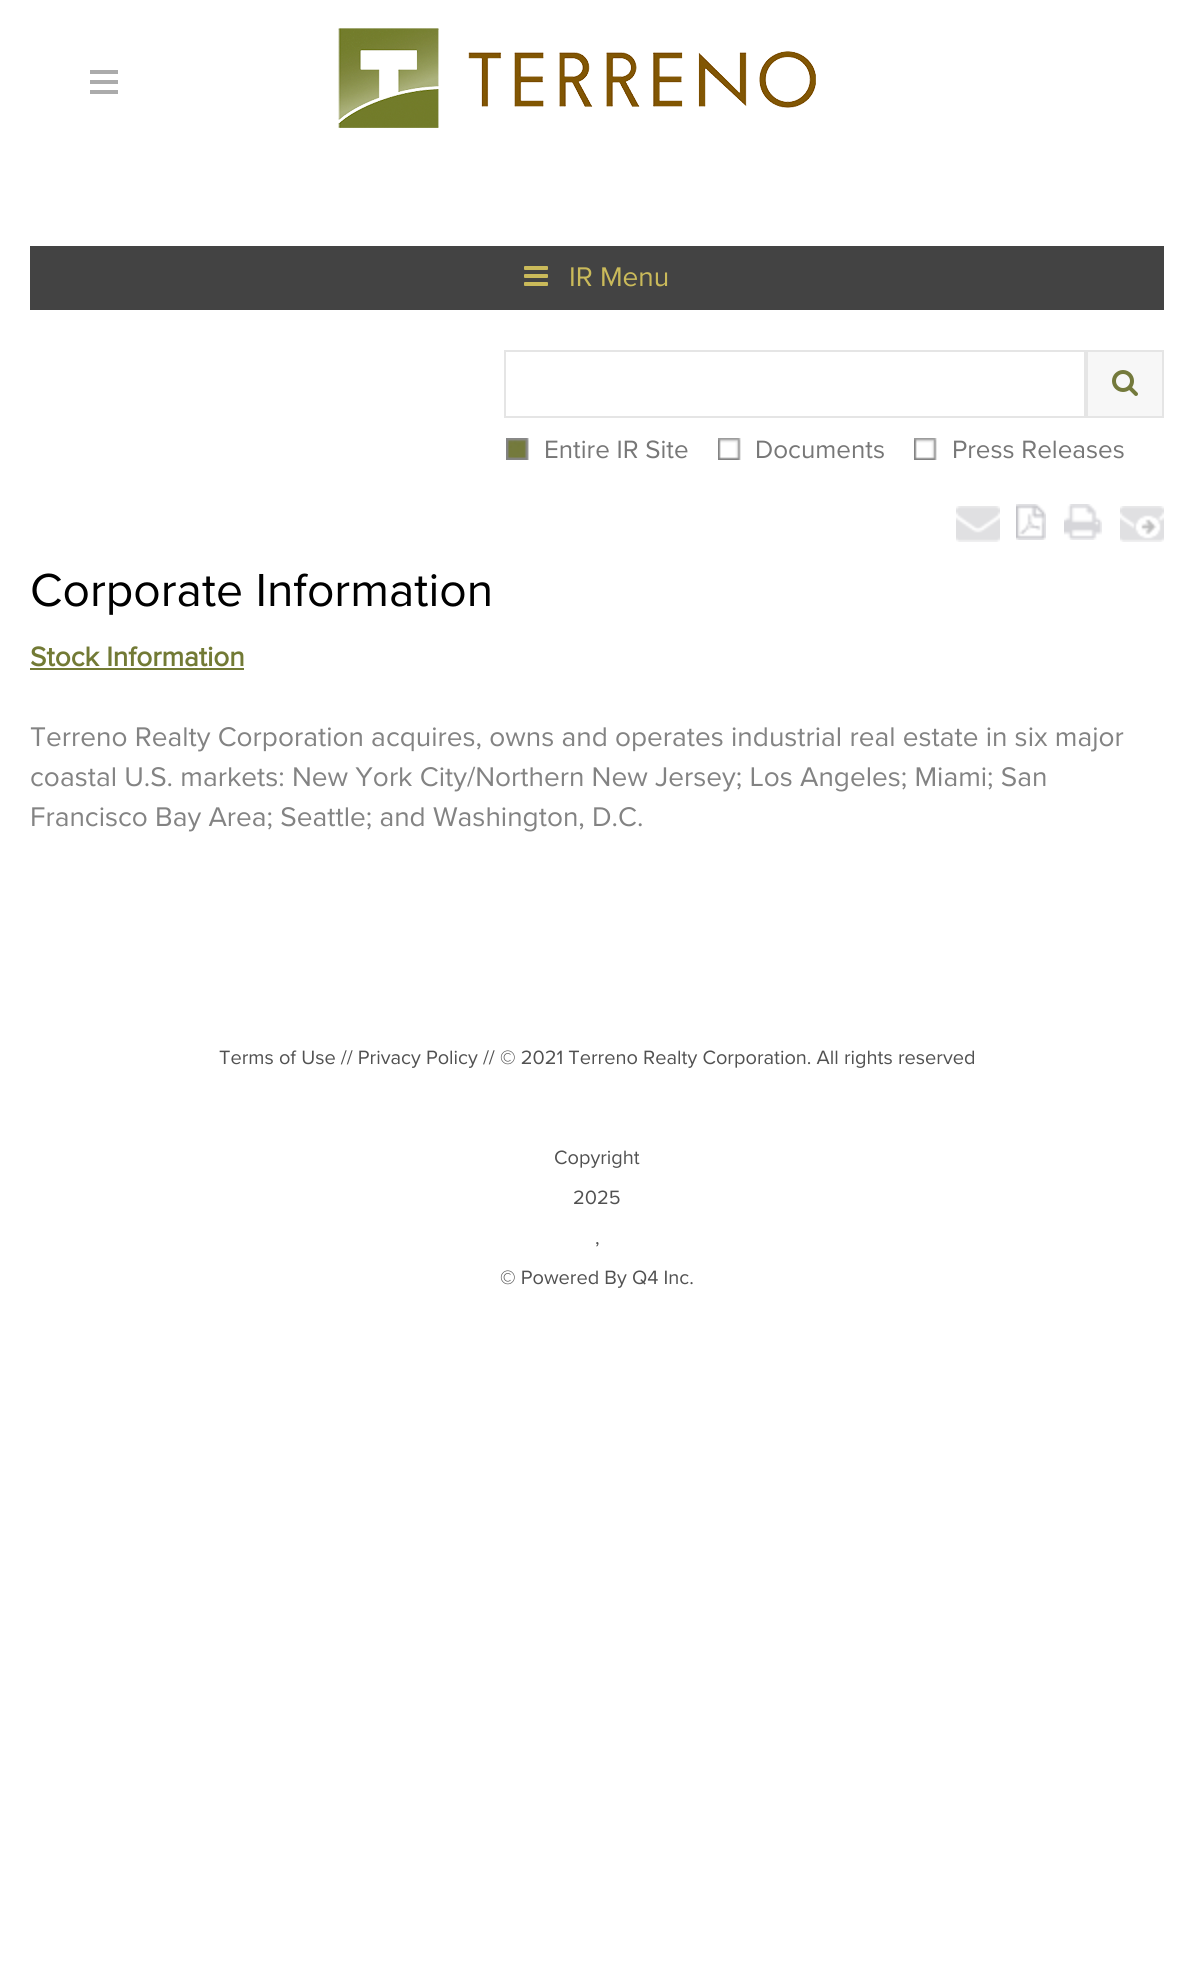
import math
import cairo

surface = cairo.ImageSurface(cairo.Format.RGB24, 1193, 1980)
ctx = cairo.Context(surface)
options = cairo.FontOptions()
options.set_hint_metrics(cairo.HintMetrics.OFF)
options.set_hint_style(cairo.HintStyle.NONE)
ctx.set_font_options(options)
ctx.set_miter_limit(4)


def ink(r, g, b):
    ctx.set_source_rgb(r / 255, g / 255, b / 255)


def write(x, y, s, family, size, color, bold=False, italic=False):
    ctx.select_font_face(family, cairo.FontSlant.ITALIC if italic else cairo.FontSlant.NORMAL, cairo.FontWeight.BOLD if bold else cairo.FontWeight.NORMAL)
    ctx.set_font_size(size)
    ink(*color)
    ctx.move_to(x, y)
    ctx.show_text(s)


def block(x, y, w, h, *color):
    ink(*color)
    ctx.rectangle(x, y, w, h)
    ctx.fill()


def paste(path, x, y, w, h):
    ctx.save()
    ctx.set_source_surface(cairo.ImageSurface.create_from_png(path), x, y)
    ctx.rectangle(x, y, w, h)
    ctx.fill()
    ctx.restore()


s1 = dict(family="Proxima Nova", size=28, color=(202, 186, 90))
s2 = dict(family="Proxima Nova", size=26, color=(119, 119, 119))
s3 = dict(family="Proxima Nova", size=48, color=(0, 0, 0))
s4 = dict(family="Proxima Nova", size=28, color=(114, 122, 53), bold=True)
s5 = dict(family="Proxima Nova", size=28, color=(131, 131, 131))
s6 = dict(family="Proxima Nova", size=20, color=(81, 81, 81))

ink(255, 255, 255)
ctx.paint()
block(90, 70, 28, 4, 171, 171, 171)
block(90, 80, 28, 4, 171, 171, 171)
block(90, 90, 28, 4, 171, 171, 171)
paste("pic1.png", 338, 28, 478, 100)
block(30, 246, 1134, 64, 67, 67, 67)
paste("pic2.png", 524, 266, 24, 20)
write(569, 286, "IR Menu", **s1)
ctx.rectangle(505, 351, 580, 66)
ink(229, 229, 229)
ctx.stroke()
ink(247, 247, 247)
ctx.rectangle(1087, 351, 76, 66)
ctx.fill_preserve()
ink(229, 229, 229)
ctx.stroke()
paste("pic3.png", 1112, 370, 26, 26)
paste("pic4.png", 506, 438, 23, 22)
paste("pic5.png", 506, 438, 23, 22)
write(544, 458, "Entire IR Site", **s2)
paste("pic6.png", 718, 438, 23, 22)
write(755, 458, "Documents", **s2)
paste("pic6.png", 914, 438, 23, 22)
write(952, 458, "Press Releases", **s2)
paste("pic7.png", 956, 506, 44, 36)
paste("pic8.png", 1016, 504, 30, 36)
paste("pic9.png", 1064, 504, 38, 36)
paste("pic10.png", 1120, 506, 44, 36)
write(30, 606, "Corporate Information", **s3)
write(30, 666, "Stock Information", **s4)
block(30, 668, 214, 2, 115, 123, 53)
write(30, 746, "Terreno Realty Corporation acquires, owns and operates industrial real estate in six major", **s5)
write(30, 786, "coastal U.S. markets: New York City/Northern New Jersey; Los Angeles; Miami; San", **s5)
write(30, 826, "Francisco Bay Area; Seattle; and Washington, D.C.", **s5)
write(219, 1064, "Terms of Use // Privacy Policy // © 2021 Terreno Realty Corporation. All rights reserved", **s6)
write(554, 1164, "Copyright", **s6)
write(573, 1204, "2025", **s6)
write(595, 1244, ",", **s6)
write(500, 1284, "© Powered By Q4 Inc.", **s6)
surface.write_to_png("screenshot.png")
